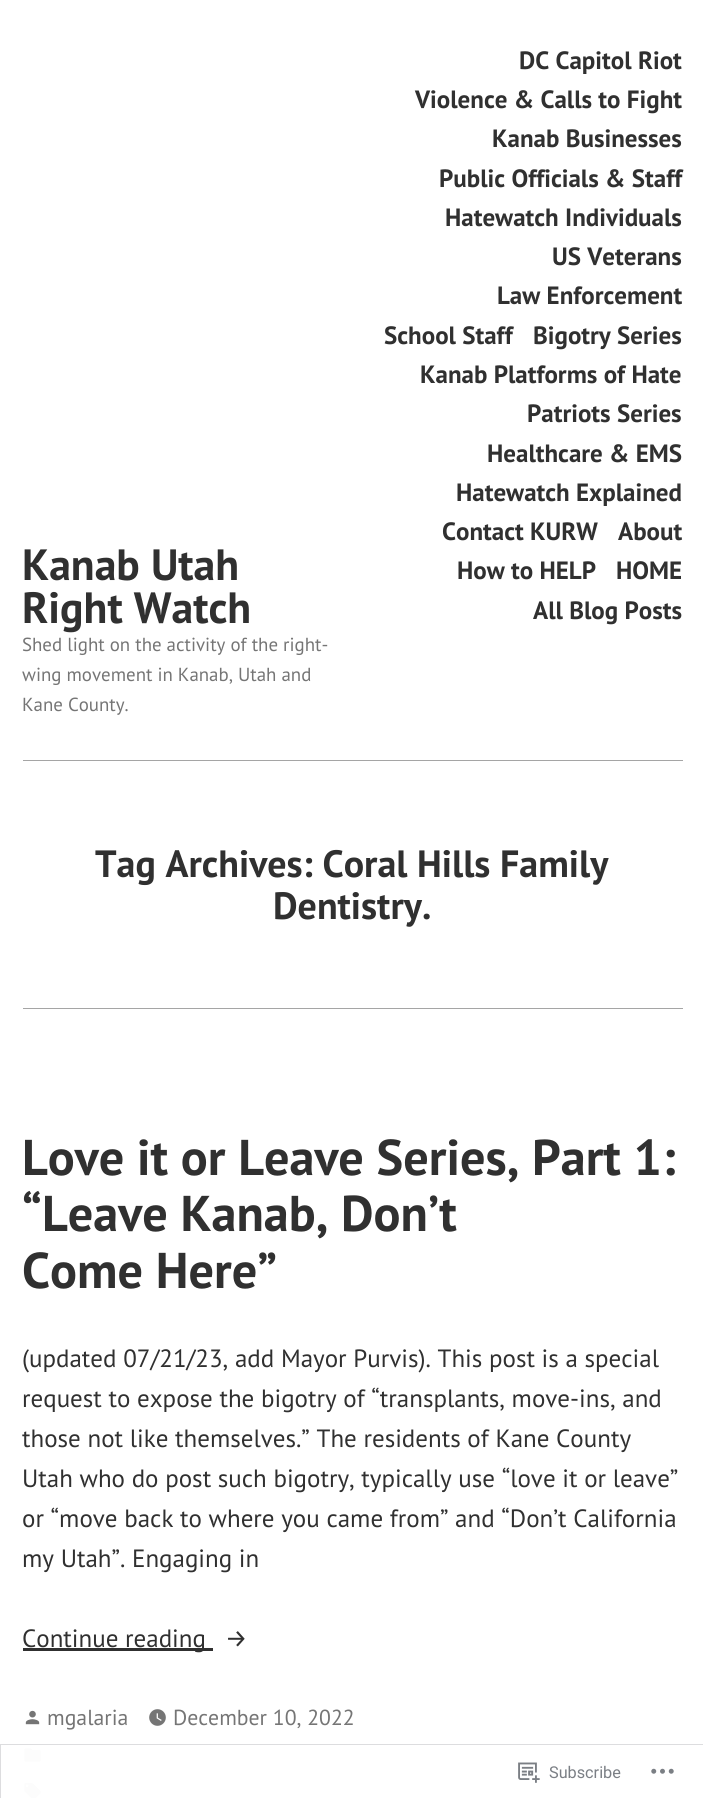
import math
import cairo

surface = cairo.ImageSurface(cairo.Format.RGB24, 703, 1798)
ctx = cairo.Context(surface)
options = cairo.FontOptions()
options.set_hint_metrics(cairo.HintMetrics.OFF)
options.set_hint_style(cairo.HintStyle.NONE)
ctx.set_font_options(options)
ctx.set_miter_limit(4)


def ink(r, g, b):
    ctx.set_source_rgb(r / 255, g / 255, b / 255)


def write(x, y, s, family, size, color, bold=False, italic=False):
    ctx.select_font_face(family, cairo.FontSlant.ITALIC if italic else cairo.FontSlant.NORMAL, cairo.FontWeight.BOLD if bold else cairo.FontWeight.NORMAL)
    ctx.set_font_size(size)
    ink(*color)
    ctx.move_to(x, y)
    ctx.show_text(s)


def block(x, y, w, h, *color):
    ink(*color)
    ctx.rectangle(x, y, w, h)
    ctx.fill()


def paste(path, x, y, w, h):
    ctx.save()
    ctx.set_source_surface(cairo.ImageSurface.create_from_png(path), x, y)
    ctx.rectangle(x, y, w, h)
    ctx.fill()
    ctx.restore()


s1 = dict(family="PT Sans", size=43.75, color=(48, 48, 48), bold=True)
s2 = dict(family="PT Sans", size=25, color=(48, 48, 48), bold=True)
s3 = dict(family="PT Sans", size=18.9, color=(117, 117, 117))
s4 = dict(family="PT Sans", size=38, color=(48, 48, 48), bold=True)
s5 = dict(family="PT Sans", size=50.25, color=(48, 48, 48), bold=True)
s6 = dict(family="PT Sans", size=25, color=(48, 48, 48))
s7 = dict(family="Fira Sans", size=25, color=(48, 48, 48))
s8 = dict(family="PT Sans", size=21.75, color=(117, 117, 117))
s9 = dict(family="Roboto", size=16.25, color=(123, 127, 133))

ink(255, 255, 255)
ctx.paint()
write(22, 580, "Kanab Utah", **s1)
write(22, 623, "Right Watch", **s1)
write(519, 69, "DC Capitol Riot", **s2)
write(415, 108, "Violence & Calls to Fight", **s2)
write(492, 147, "Kanab Businesses", **s2)
write(439, 187, "Public Officials & Staff", **s2)
write(445, 226, "Hatewatch Individuals", **s2)
write(552, 265, "US Veterans", **s2)
write(497, 304, "Law Enforcement", **s2)
write(384, 344, "School Staff", **s2)
write(533, 344, "Bigotry Series", **s2)
write(420, 383, "Kanab Platforms of Hate", **s2)
write(527, 422, "Patriots Series", **s2)
write(487, 462, "Healthcare & EMS", **s2)
write(456, 501, "Hatewatch Explained", **s2)
write(442, 540, "Contact KURW", **s2)
write(618, 540, "About", **s2)
write(457, 579, "How to HELP", **s2)
write(616, 579, "HOME", **s2)
write(533, 619, "All Blog Posts", **s2)
write(22, 651, "Shed light on the activity of the right-", **s3)
write(22, 681, "wing movement in Kanab, Utah and", **s3)
write(22, 711, "Kane County.", **s3)
block(23, 760, 660, 1, 165, 165, 165)
write(95, 877, "Tag Archives: Coral Hills Family", **s4)
write(273, 919, "Dentistry.", **s4)
block(23, 1008, 660, 1, 165, 165, 165)
write(22, 1175, "Love it or Leave Series, Part 1:", **s5)
write(22, 1231, "“Leave Kanab, Don’t", **s5)
write(22, 1288, "Come Here”", **s5)
write(22, 1367, "(updated 07/21/23, add Mayor Purvis). This post is a special", **s6)
write(22, 1407, "request to expose the bigotry of “transplants, move-ins, and", **s6)
write(22, 1447, "those not like themselves.” The residents of Kane County", **s6)
write(22, 1487, "Utah who do post such bigotry, typically use “love it or leave”", **s6)
write(22, 1527, "or “move back to where you came from” and “Don’t California", **s6)
write(22, 1567, "my Utah”. Engaging in", **s6)
block(23, 1648, 190, 3, 48, 48, 48)
write(22, 1647, "Continue reading", **s6)
write(225, 1647, "→", **s7)
paste("pic1.png", 25, 1710, 15, 15)
write(47, 1725, "mgalaria", **s8)
paste("pic2.png", 149, 1709, 17, 17)
write(173, 1725, "December 10, 2022", **s8)
paste("pic3.png", 24, 1748, 17, 14)
paste("pic4.png", 24, 1782, 17, 16)
ctx.rectangle(0.5, 1744.5, 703, 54)
ink(221, 221, 223)
ctx.set_line_width(1)
ctx.stroke()
paste("pic5.png", 518, 1762, 22, 21)
write(549, 1778, "Subscribe", **s9)
paste("pic6.png", 651, 1768, 23, 6)
surface.write_to_png("screenshot.png")
